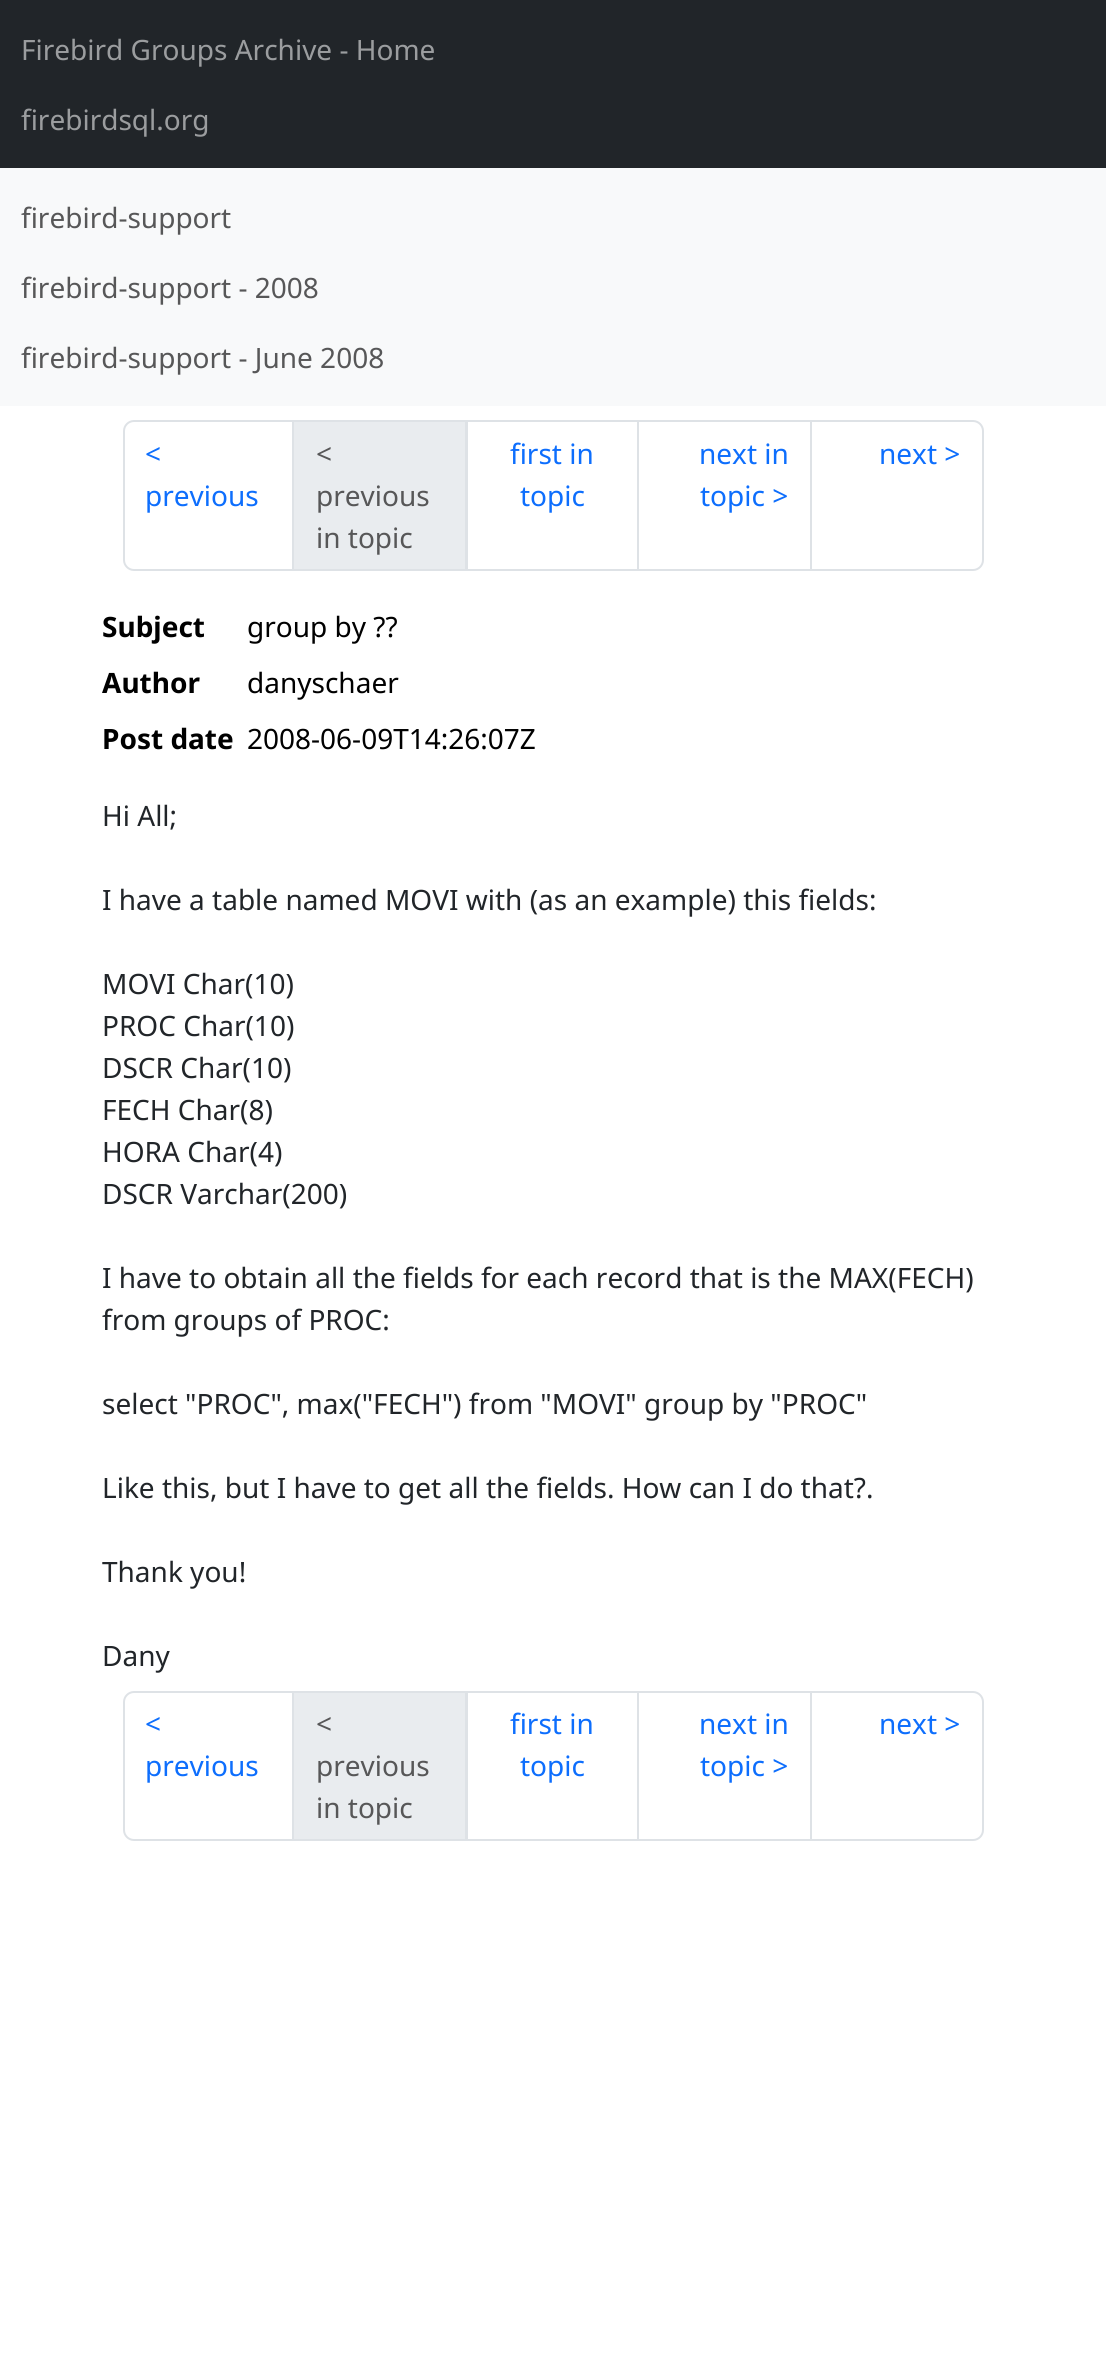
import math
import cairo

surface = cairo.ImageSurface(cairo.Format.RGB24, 1106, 2380)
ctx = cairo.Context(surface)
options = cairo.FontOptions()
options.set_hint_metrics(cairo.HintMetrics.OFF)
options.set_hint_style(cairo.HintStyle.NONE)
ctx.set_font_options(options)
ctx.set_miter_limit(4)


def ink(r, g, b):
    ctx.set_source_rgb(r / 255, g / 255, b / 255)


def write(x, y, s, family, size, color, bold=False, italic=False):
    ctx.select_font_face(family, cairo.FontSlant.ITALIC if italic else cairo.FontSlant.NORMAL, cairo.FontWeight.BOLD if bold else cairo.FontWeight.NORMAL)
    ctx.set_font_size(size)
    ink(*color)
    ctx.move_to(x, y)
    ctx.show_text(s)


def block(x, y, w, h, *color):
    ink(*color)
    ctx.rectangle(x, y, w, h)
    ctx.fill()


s1 = dict(family="Noto Sans", size=28, color=(155, 157, 159))
s2 = dict(family="Noto Sans", size=28, color=(87, 87, 88))
s3 = dict(family="Noto Sans", size=28, color=(13, 110, 253))
s4 = dict(family="Noto Sans", size=28, color=(0, 0, 0), bold=True)
s5 = dict(family="Noto Sans", size=28, color=(0, 0, 0))
s6 = dict(family="Noto Sans", size=28, color=(33, 37, 41))

ink(255, 255, 255)
ctx.paint()
block(0, 0, 1106, 168, 33, 37, 41)
write(21, 60, "Firebird Groups Archive - Home", **s1)
write(21, 130, "firebirdsql.org", **s1)
block(0, 168, 1106, 238, 248, 249, 250)
write(21, 228, "firebird-support", **s2)
write(21, 298, "firebird-support - 2008", **s2)
write(21, 368, "firebird-support - June 2008", **s2)
ctx.new_path()
ctx.move_to(134, 421)
ctx.line_to(293, 421)
ctx.line_to(293, 570)
ctx.line_to(134, 570)
ctx.curve_to(128.5, 570, 124, 565.5, 124, 560)
ctx.line_to(124, 431)
ctx.curve_to(124, 425.5, 128.5, 421, 134, 421)
ctx.close_path()
ink(222, 226, 230)
ctx.stroke()
write(145, 464, "<", **s3)
write(145, 506, "previous", **s3)
ink(233, 236, 239)
ctx.rectangle(293, 421, 173, 149)
ctx.fill_preserve()
ink(222, 226, 230)
ctx.stroke()
write(316, 464, "<", **s2)
write(316, 506, "previous", **s2)
write(316, 548, "in topic", **s2)
ctx.rectangle(467, 421, 171, 149)
ink(222, 226, 230)
ctx.stroke()
write(510, 464, "first in", **s3)
write(520, 506, "topic", **s3)
ctx.rectangle(638, 421, 173, 149)
ink(222, 226, 230)
ctx.stroke()
write(699, 464, "next in", **s3)
write(700, 506, "topic >", **s3)
ink(255, 255, 255)
ctx.new_path()
ctx.move_to(811, 421)
ctx.line_to(973, 421)
ctx.curve_to(978.5, 421, 983, 425.5, 983, 431)
ctx.line_to(983, 560)
ctx.curve_to(983, 565.5, 978.5, 570, 973, 570)
ctx.line_to(811, 570)
ctx.close_path()
ctx.fill_preserve()
ink(222, 226, 230)
ctx.stroke()
write(879, 464, "next >", **s3)
write(102, 637, "Subject", **s4)
write(247, 637, "group by ??", **s5)
write(102, 693, "Author", **s4)
write(247, 693, "danyschaer", **s5)
write(102, 749, "Post date", **s4)
write(247, 749, "2008-06-09T14:26:07Z", **s5)
write(102, 826, "Hi All;", **s6)
write(102, 910, "I have a table named MOVI with (as an example) this fields:", **s6)
write(102, 994, "MOVI Char(10)", **s6)
write(102, 1036, "PROC Char(10)", **s6)
write(102, 1078, "DSCR Char(10)", **s6)
write(102, 1120, "FECH Char(8)", **s6)
write(102, 1162, "HORA Char(4)", **s6)
write(102, 1204, "DSCR Varchar(200)", **s6)
write(102, 1288, "I have to obtain all the fields for each record that is the MAX(FECH)", **s6)
write(102, 1330, "from groups of PROC:", **s6)
write(102, 1414, "select \"PROC\", max(\"FECH\") from \"MOVI\" group by \"PROC\"", **s6)
write(102, 1498, "Like this, but I have to get all the fields. How can I do that?.", **s6)
write(102, 1582, "Thank you!", **s6)
write(102, 1666, "Dany", **s6)
ctx.new_path()
ctx.move_to(134, 1692)
ctx.line_to(293, 1692)
ctx.line_to(293, 1840)
ctx.line_to(134, 1840)
ctx.curve_to(128.5, 1840, 124, 1835.5, 124, 1830)
ctx.line_to(124, 1702)
ctx.curve_to(124, 1696.5, 128.5, 1692, 134, 1692)
ctx.close_path()
ink(222, 226, 230)
ctx.stroke()
write(145, 1734, "<", **s3)
write(145, 1776, "previous", **s3)
ink(233, 236, 239)
ctx.rectangle(293, 1692, 173, 148)
ctx.fill_preserve()
ink(222, 226, 230)
ctx.stroke()
write(316, 1734, "<", **s2)
write(316, 1776, "previous", **s2)
write(316, 1818, "in topic", **s2)
ctx.rectangle(467, 1692, 171, 148)
ink(222, 226, 230)
ctx.stroke()
write(510, 1734, "first in", **s3)
write(520, 1776, "topic", **s3)
ctx.rectangle(638, 1692, 173, 148)
ink(222, 226, 230)
ctx.stroke()
write(699, 1734, "next in", **s3)
write(700, 1776, "topic >", **s3)
ink(255, 255, 255)
ctx.new_path()
ctx.move_to(811, 1692)
ctx.line_to(973, 1692)
ctx.curve_to(978.5, 1692, 983, 1696.5, 983, 1702)
ctx.line_to(983, 1830)
ctx.curve_to(983, 1835.5, 978.5, 1840, 973, 1840)
ctx.line_to(811, 1840)
ctx.close_path()
ctx.fill_preserve()
ink(222, 226, 230)
ctx.stroke()
write(879, 1734, "next >", **s3)
surface.write_to_png("screenshot.png")
